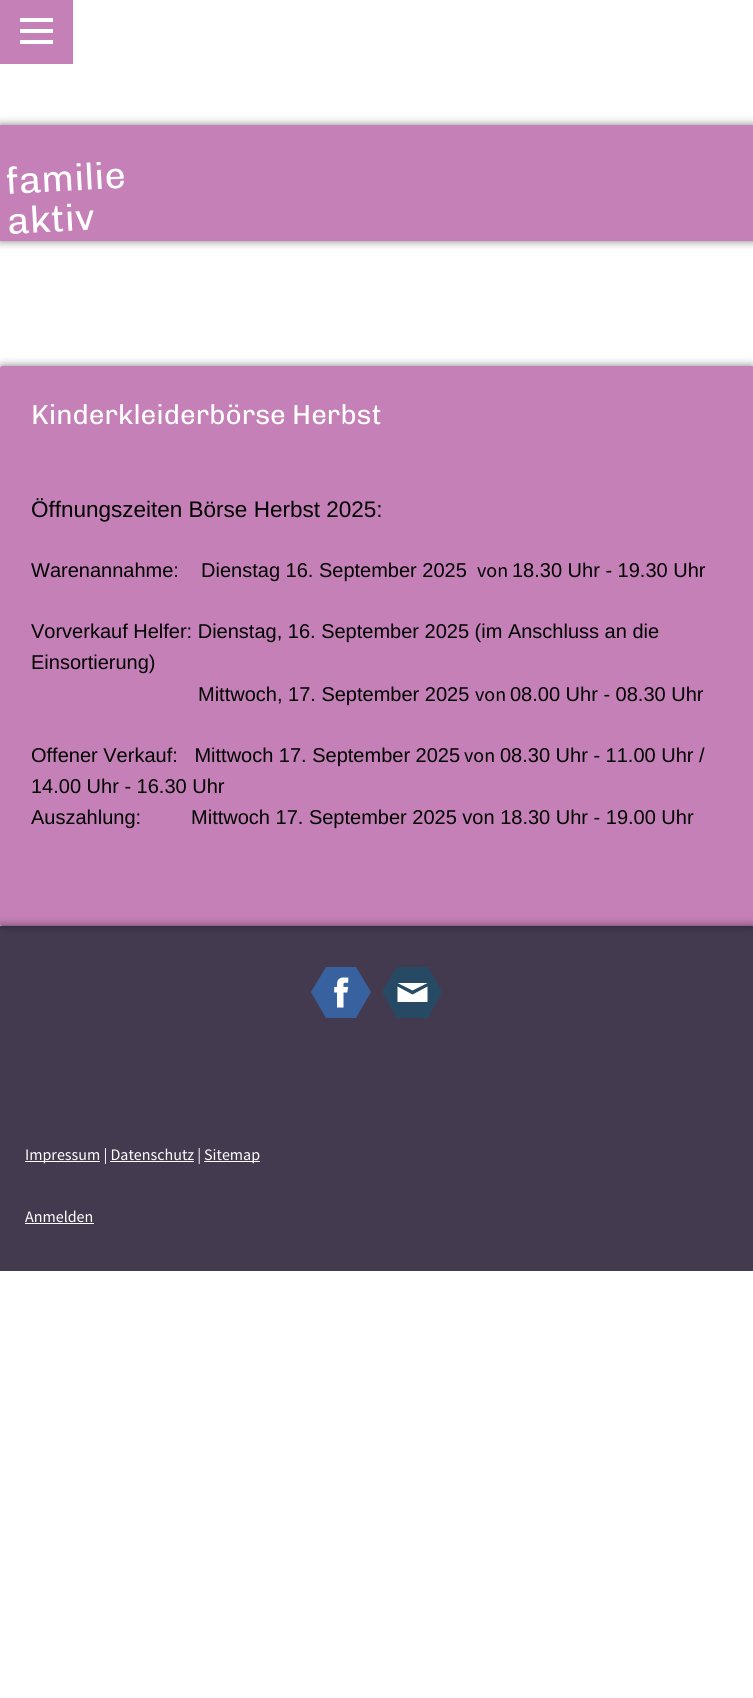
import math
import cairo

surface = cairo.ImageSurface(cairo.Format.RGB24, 753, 1698)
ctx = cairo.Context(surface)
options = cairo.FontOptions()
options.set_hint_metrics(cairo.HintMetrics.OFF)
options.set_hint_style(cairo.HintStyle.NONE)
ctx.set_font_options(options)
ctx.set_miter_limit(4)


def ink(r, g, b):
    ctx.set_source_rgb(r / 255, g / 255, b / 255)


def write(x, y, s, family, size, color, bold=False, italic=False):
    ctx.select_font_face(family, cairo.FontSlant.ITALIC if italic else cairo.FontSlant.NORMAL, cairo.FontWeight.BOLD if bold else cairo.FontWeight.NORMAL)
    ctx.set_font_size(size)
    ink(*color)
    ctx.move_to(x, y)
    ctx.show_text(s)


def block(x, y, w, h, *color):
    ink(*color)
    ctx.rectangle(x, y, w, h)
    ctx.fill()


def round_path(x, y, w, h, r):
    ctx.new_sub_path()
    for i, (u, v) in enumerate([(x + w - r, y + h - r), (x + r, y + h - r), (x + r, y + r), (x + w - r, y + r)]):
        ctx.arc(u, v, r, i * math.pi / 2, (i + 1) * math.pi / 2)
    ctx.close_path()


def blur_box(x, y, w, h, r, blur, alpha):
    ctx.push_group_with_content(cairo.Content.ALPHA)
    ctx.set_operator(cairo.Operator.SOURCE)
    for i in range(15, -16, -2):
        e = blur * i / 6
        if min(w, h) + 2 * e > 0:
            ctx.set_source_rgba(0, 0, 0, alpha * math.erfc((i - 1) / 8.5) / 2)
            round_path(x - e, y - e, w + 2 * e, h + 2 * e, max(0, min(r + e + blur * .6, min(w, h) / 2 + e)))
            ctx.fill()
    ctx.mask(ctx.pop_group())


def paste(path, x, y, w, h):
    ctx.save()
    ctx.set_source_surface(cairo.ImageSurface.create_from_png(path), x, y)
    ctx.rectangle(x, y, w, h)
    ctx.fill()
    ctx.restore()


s1 = dict(family="Chivo Medium", size=37.5, color=(255, 255, 255))
s2 = dict(family="Chivo Medium", size=27.5, color=(255, 255, 255))
s3 = dict(family="Liberation Sans", size=22.5, color=(0, 0, 0))
s4 = dict(family="Liberation Sans", size=20, color=(0, 0, 0))
s5 = dict(family="Source Sans Pro", size=20, color=(0, 0, 0))
s6 = dict(family="Source Sans Pro", size=16, color=(255, 255, 255))

ink(255, 255, 255)
ctx.paint()
ink(0, 0, 0)
blur_box(0, 125, 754, 116, 0, 4.5, 0.5)
block(0, 125, 753, 116, 196, 128, 183)
block(0, 0, 73, 64, 196, 128, 183)
block(20, 29, 33, 4, 255, 255, 255)
block(20, 18, 33, 4, 255, 255, 255)
block(20, 40, 33, 4, 255, 255, 255)
ctx.save()
ctx.translate(6, 194)
ctx.rotate(-3 * math.pi / 180)
write(0, 0, "familie", **s1)
ctx.restore()
ctx.save()
ctx.translate(8, 234)
ctx.rotate(-3 * math.pi / 180)
write(0, 0, "aktiv", **s1)
ctx.restore()
ink(0, 0, 0)
blur_box(0, 366, 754, 560, 2.5, 4.5, 0.5)
ink(196, 128, 183)
round_path(0, 366, 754, 560, 2.5)
ctx.fill()
write(31, 424, "Kinderkleiderbörse Herbst", **s2)
write(31, 517, "Öffnungszeiten Börse Herbst 2025:", **s3)
write(31, 577, "Warenannahme:    Dienstag 16. September 2025", **s4)
write(477, 577, "von", **s5)
write(512, 577, "18.30 Uhr - 19.30 Uhr", **s4)
write(31, 638, "Vorverkauf Helfer: Dienstag, 16. September 2025 (im Anschluss an die", **s4)
write(31, 669, "Einsortierung)", **s4)
write(198, 701, "Mittwoch, 17. September 2025", **s4)
write(475, 701, "von", **s5)
write(510, 701, "08.00 Uhr - 08.30 Uhr", **s4)
write(31, 762, "Offener Verkauf:   Mittwoch 17. September 2025", **s4)
write(464, 762, "von", **s5)
write(500, 762, "08.30 Uhr - 11.00 Uhr /", **s4)
write(31, 793, "14.00 Uhr - 16.30 Uhr", **s4)
write(31, 824, "Auszahlung:         Mittwoch 17. September 2025 von 18.30 Uhr - 19.00 Uhr", **s4)
ctx.save()
ctx.rectangle(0, 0, 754, 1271)
ctx.clip()
ctx.set_fill_rule(cairo.FillRule.EVEN_ODD)
ctx.new_path()
ctx.move_to(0, 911)
ctx.line_to(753, 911)
ctx.line_to(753, 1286)
ctx.line_to(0, 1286)
ctx.close_path()
ctx.move_to(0, 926)
ctx.line_to(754, 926)
ctx.line_to(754, 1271)
ctx.line_to(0, 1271)
ctx.close_path()
ctx.clip()
ink(0, 0, 0)
blur_box(0, 926, 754, 345, 0, 4.5, 0.5)
ctx.restore()
ctx.set_source_rgba(0.086, 0.035, 0.137, 0.8)
ctx.rectangle(0, 926, 753, 345)
ctx.fill()
ink(56, 97, 159)
ctx.new_path()
ctx.move_to(326, 1018)
ctx.line_to(311, 992)
ctx.line_to(326, 967)
ctx.line_to(356, 967)
ctx.line_to(371, 992)
ctx.line_to(356, 1018)
ctx.close_path()
ctx.fill()
paste("pic1.png", 334, 977, 15, 31)
ink(38, 74, 100)
ctx.new_path()
ctx.move_to(397, 1018)
ctx.line_to(382, 992)
ctx.line_to(397, 967)
ctx.line_to(428, 967)
ctx.line_to(442, 992)
ctx.line_to(428, 1018)
ctx.close_path()
ctx.fill()
ink(255, 255, 255)
ctx.new_path()
ctx.move_to(427.5, 1002)
ctx.line_to(397.5, 1002)
ctx.line_to(397.5, 986.5)
ctx.line_to(412.5, 994.5)
ctx.line_to(427.5, 986.5)
ctx.close_path()
ctx.move_to(427.5, 983)
ctx.line_to(397.5, 983)
ctx.line_to(412.5, 990.5)
ctx.close_path()
ctx.fill()
block(25, 1161, 75, 1, 255, 255, 255)
write(25, 1160, "Impressum | Datenschutz |", **s6)
block(204, 1161, 56, 1, 255, 255, 255)
write(204, 1160, "Sitemap", **s6)
block(110, 1161, 84, 1, 255, 255, 255)
write(25, 1222, "Anmelden", **s6)
block(25, 1223, 69, 1, 255, 255, 255)
surface.write_to_png("screenshot.png")
